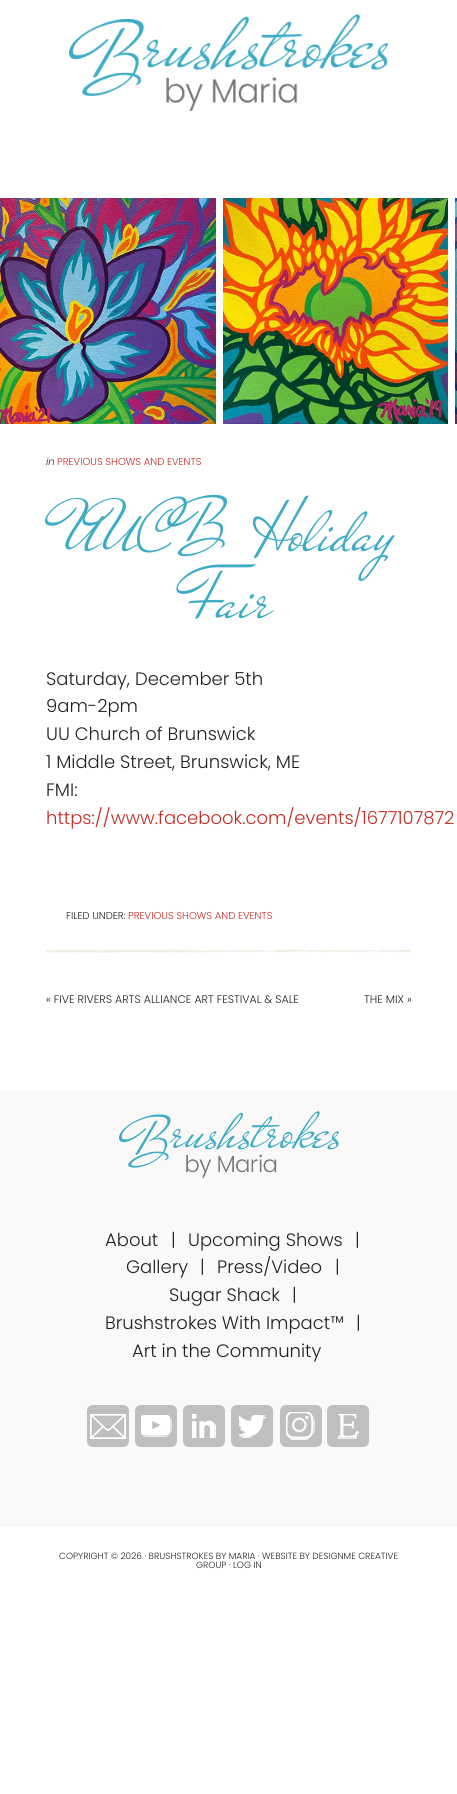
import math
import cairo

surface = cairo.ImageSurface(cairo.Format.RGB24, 457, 1794)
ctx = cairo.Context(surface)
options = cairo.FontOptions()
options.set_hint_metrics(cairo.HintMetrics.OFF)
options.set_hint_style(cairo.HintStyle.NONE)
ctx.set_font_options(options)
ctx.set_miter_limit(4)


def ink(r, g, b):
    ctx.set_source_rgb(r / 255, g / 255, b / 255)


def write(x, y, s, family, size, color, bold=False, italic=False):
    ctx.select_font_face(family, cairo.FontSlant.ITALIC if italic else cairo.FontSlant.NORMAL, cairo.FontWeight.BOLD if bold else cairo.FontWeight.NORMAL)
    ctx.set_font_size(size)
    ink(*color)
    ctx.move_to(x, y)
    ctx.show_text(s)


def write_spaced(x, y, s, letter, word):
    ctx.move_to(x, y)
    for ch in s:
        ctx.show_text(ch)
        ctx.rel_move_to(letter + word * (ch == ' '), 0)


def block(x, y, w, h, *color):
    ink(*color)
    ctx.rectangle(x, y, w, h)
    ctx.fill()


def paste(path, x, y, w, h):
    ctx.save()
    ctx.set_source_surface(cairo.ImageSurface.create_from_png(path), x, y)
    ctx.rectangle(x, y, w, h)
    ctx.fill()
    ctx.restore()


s1 = dict(family="Poppins Light", size=10, color=(34, 34, 34), italic=True)
s2 = dict(family="Poppins Light", size=10, color=(195, 43, 36))
s3 = dict(family="Mr De Haviland", size=75, color=(62, 172, 197))
s4 = dict(family="Poppins Light", size=18, color=(34, 34, 34))
s5 = dict(family="Poppins Light", size=18, color=(195, 43, 36))
s6 = dict(family="Poppins Light", size=10, color=(34, 34, 34))
s7 = dict(family="Poppins Light", size=11, color=(34, 34, 34))
s8 = dict(family="Poppins Light", size=9, color=(34, 34, 34))

ink(255, 255, 255)
ctx.paint()
paste("pic1.png", 69, 14, 319, 97)
paste("pic2.png", 0, 198, 216, 226)
paste("pic3.png", 223, 198, 225, 226)
paste("pic4.png", 455, 198, 2, 226)
write(46, 465, "in", **s1)
write(57, 465, "PREVIOUS SHOWS AND EVENTS", **s2)
ctx.select_font_face("Mr De Haviland")
ctx.set_font_size(75)
ink(62, 172, 197)
write_spaced(62, 550, "UUCB Holiday", 0, 14)
write(186, 617, "Fair", **s3)
write(46, 685, "Saturday, December 5th", **s4)
write(46, 712, "9am-2pm", **s4)
write(46, 740, "UU Church of Brunswick", **s4)
write(46, 768, "1 Middle Street, Brunswick, ME", **s4)
write(46, 796, "FMI:", **s4)
write(46, 824, "https://www.facebook.com/events/1677107872", **s5)
paste("pic5.png", 46, 949, 365, 4)
write(66, 919, "FILED UNDER:", **s6)
write(128, 919, "PREVIOUS SHOWS AND EVENTS", **s2)
write(46, 1003, "« FIVE RIVERS ARTS ALLIANCE ART FESTIVAL & SALE", **s7)
write(364, 1003, "THE MIX »", **s7)
block(0, 1091, 457, 436, 250, 249, 247)
paste("pic6.png", 119, 1111, 220, 67)
write(105, 1246, "About", **s4)
write(171, 1246, "|", **s4)
write(188, 1246, "Upcoming Shows", **s4)
write(355, 1246, "|", **s4)
write(126, 1273, "Gallery", **s4)
write(200, 1273, "|", **s4)
write(217, 1273, "Press/Video", **s4)
write(335, 1273, "|", **s4)
write(169, 1301, "Sugar Shack", **s4)
write(292, 1301, "|", **s4)
write(105, 1329, "Brushstrokes With Impact™", **s4)
write(356, 1329, "|", **s4)
write(132, 1357, "Art in the Community", **s4)
paste("pic7.png", 87, 1405, 42, 42)
paste("pic8.png", 135, 1405, 42, 42)
paste("pic9.png", 183, 1405, 42, 42)
paste("pic10.png", 231, 1405, 42, 42)
paste("pic11.png", 280, 1405, 42, 42)
paste("pic12.png", 327, 1405, 42, 42)
write(59, 1559, "COPYRIGHT © 2026 · BRUSHSTROKES BY MARIA · WEBSITE BY DESIGNME CREATIVE", **s8)
write(196, 1568, "GROUP · LOG IN", **s8)
surface.write_to_png("screenshot.png")
